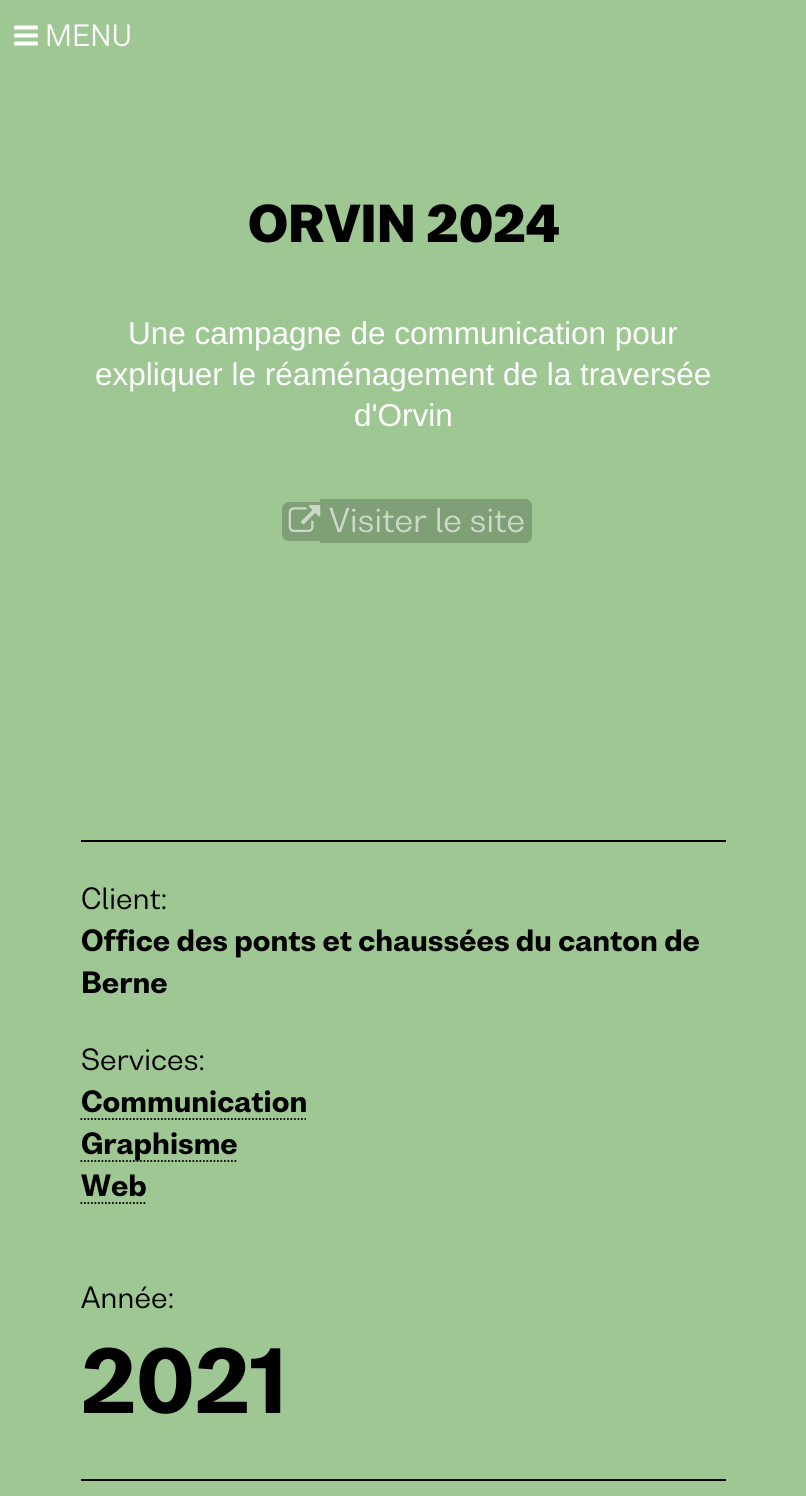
import math
import cairo

surface = cairo.ImageSurface(cairo.Format.RGB24, 806, 1496)
ctx = cairo.Context(surface)
options = cairo.FontOptions()
options.set_hint_metrics(cairo.HintMetrics.OFF)
options.set_hint_style(cairo.HintStyle.NONE)
ctx.set_font_options(options)
ctx.set_miter_limit(4)


def ink(r, g, b):
    ctx.set_source_rgb(r / 255, g / 255, b / 255)


def write(x, y, s, family, size, color, bold=False, italic=False):
    ctx.select_font_face(family, cairo.FontSlant.ITALIC if italic else cairo.FontSlant.NORMAL, cairo.FontWeight.BOLD if bold else cairo.FontWeight.NORMAL)
    ctx.set_font_size(size)
    ink(*color)
    ctx.move_to(x, y)
    ctx.show_text(s)


def block(x, y, w, h, *color):
    ink(*color)
    ctx.rectangle(x, y, w, h)
    ctx.fill()


def paste(path, x, y, w, h):
    ctx.save()
    ctx.set_source_surface(cairo.ImageSurface.create_from_png(path), x, y)
    ctx.rectangle(x, y, w, h)
    ctx.fill()
    ctx.restore()


s1 = dict(family="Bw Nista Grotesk", size=28, color=(255, 255, 255))
s2 = dict(family="Bw Nista Grotesk Black", size=48.5, color=(0, 0, 0))
s3 = dict(family="Liberation Sans", size=31.5, color=(255, 255, 255))
s4 = dict(family="Bw Nista Grotesk", size=31.5, color=(204, 217, 200))
s5 = dict(family="Bw Nista Grotesk", size=28, color=(0, 0, 0))
s6 = dict(family="Bw Nista Grotesk ExtraBold", size=28, color=(0, 0, 0))
s7 = dict(family="Bw Nista Grotesk ExtraBold", size=84, color=(0, 0, 0))

ink(159, 199, 148)
ctx.paint()
paste("pic1.png", 14, 25, 24, 21)
write(45, 46, "MENU", **s1)
write(248, 242, "ORVIN 2024", **s2)
write(128, 344, "Une campagne de communication pour", **s3)
write(95, 385, "expliquer le réaménagement de la traversée", **s3)
write(354, 426, "d'Orvin", **s3)
ink(127, 159, 118)
ctx.new_path()
ctx.move_to(289, 502)
ctx.line_to(320, 502)
ctx.line_to(320, 541)
ctx.line_to(289, 541)
ctx.curve_to(285, 541, 282, 538, 282, 534)
ctx.line_to(282, 509)
ctx.curve_to(282, 505, 285, 502, 289, 502)
ctx.close_path()
ctx.fill()
ctx.new_path()
ctx.move_to(320, 499)
ctx.line_to(525, 499)
ctx.curve_to(529, 499, 532, 502, 532, 506)
ctx.line_to(532, 536)
ctx.curve_to(532, 540, 529, 543, 525, 543)
ctx.line_to(320, 543)
ctx.close_path()
ctx.fill()
paste("pic2.png", 288, 505, 33, 27)
write(329, 532, "Visiter le site", **s4)
block(81, 840, 645, 2, 0, 0, 0)
block(81, 1479, 645, 2, 0, 0, 0)
write(81, 909, "Client:", **s5)
write(81, 951, "Office des ponts et chaussées du canton de", **s6)
write(81, 993, "Berne", **s6)
write(81, 1070, "Services:", **s5)
write(81, 1112, "Communication", **s6)
ctx.new_path()
ctx.move_to(80.5, 1119)
ctx.line_to(306, 1119)
ctx.set_line_width(1.8)
ctx.set_dash([1.75, 1.75])
ctx.stroke()
ctx.new_path()
ctx.move_to(80.5, 1161)
ctx.line_to(238, 1161)
ctx.stroke()
write(81, 1154, "Graphisme", **s6)
write(81, 1196, "Web", **s6)
ctx.new_path()
ctx.move_to(80.5, 1203)
ctx.line_to(147, 1203)
ctx.stroke()
write(81, 1308, "Année:", **s5)
write(81, 1413, "2021", **s7)
surface.write_to_png("screenshot.png")
